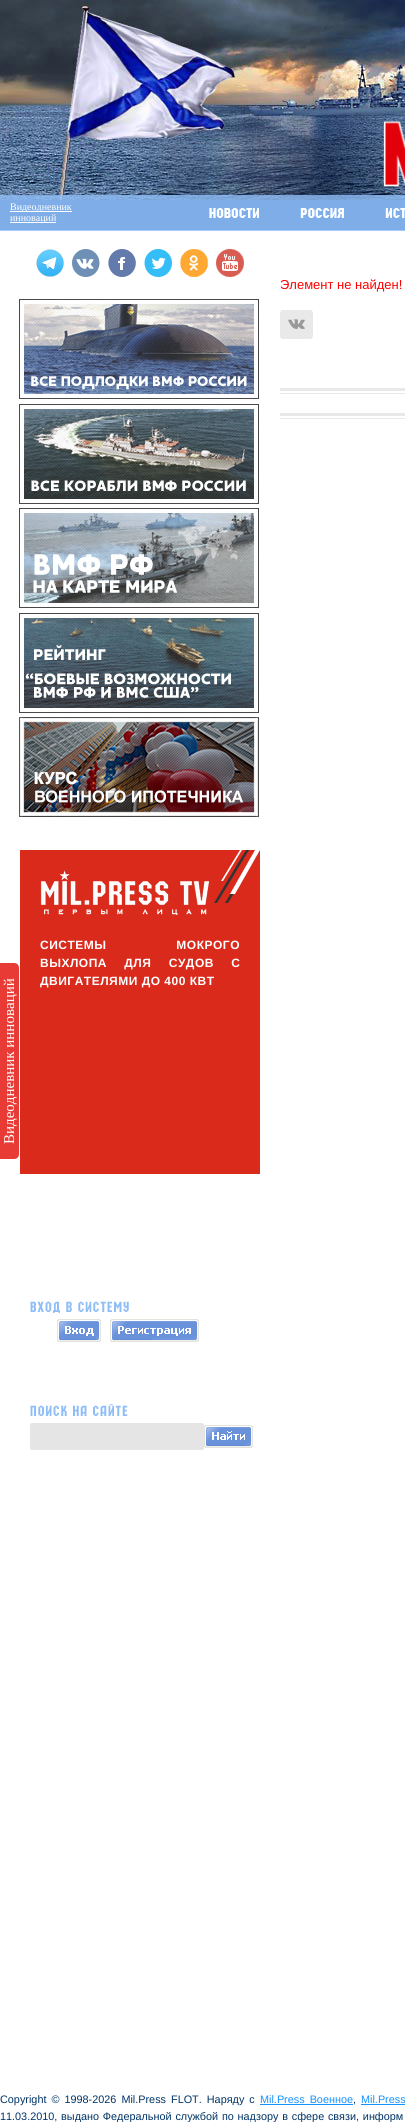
import math
import cairo

surface = cairo.ImageSurface(cairo.Format.RGB24, 405, 2122)
ctx = cairo.Context(surface)
options = cairo.FontOptions()
options.set_hint_metrics(cairo.HintMetrics.OFF)
options.set_hint_style(cairo.HintStyle.NONE)
ctx.set_font_options(options)
ctx.set_miter_limit(4)


def ink(r, g, b):
    ctx.set_source_rgb(r / 255, g / 255, b / 255)


def write(x, y, s, family, size, color, bold=False, italic=False):
    ctx.select_font_face(family, cairo.FontSlant.ITALIC if italic else cairo.FontSlant.NORMAL, cairo.FontWeight.BOLD if bold else cairo.FontWeight.NORMAL)
    ctx.set_font_size(size)
    ink(*color)
    ctx.move_to(x, y)
    ctx.show_text(s)


def write_spaced(x, y, s, letter, word):
    ctx.move_to(x, y)
    for ch in s:
        ctx.show_text(ch)
        ctx.rel_move_to(letter + word * (ch == ' '), 0)


def block(x, y, w, h, *color):
    ink(*color)
    ctx.rectangle(x, y, w, h)
    ctx.fill()


def round_path(x, y, w, h, r):
    ctx.new_sub_path()
    for i, (u, v) in enumerate([(x + w - r, y + h - r), (x + r, y + h - r), (x + r, y + r), (x + w - r, y + r)]):
        ctx.arc(u, v, r, i * math.pi / 2, (i + 1) * math.pi / 2)
    ctx.close_path()


def paste(path, x, y, w, h):
    ctx.save()
    ctx.set_source_surface(cairo.ImageSurface.create_from_png(path), x, y)
    ctx.rectangle(x, y, w, h)
    ctx.fill()
    ctx.restore()


s1 = dict(family="Liberation Serif", size=10, color=(255, 255, 255))
s2 = dict(family="Liberation Sans", size=13, color=(255, 0, 0))
s3 = dict(family="Liberation Sans", size=10.85, color=(0, 51, 102))
s4 = dict(family="Liberation Serif", size=15, color=(255, 255, 255))

ink(255, 255, 255)
ctx.paint()
block(0, 200, 405, 30, 65, 105, 166)
paste("pic1.png", 0, 0, 405, 200)
paste("pic2.png", 383, 120, 22, 67)
ctx.set_source_rgba(0.557, 0.745, 0.973, 0.8)
ctx.rectangle(0, 195, 405, 36)
ctx.fill()
block(10, 211, 62, 1, 255, 255, 255)
write(10, 210, "Видеодневник", **s1)
block(10, 222, 46, 1, 255, 255, 255)
write(10, 221, "инноваций", **s1)
paste("pic3.png", 209, 208, 50, 10)
paste("pic4.png", 300, 208, 44, 10)
paste("pic5.png", 385, 208, 20, 10)
write(280, 289, "Элемент не найден!", **s2)
ink(233, 233, 233)
round_path(280, 310, 33, 29, 3)
ctx.fill()
paste("pic6.png", 288, 319, 17, 10)
block(280, 388, 125, 3, 233, 233, 233)
block(280, 393, 125, 1, 233, 233, 233)
block(280, 413, 125, 3, 233, 233, 233)
block(280, 418, 125, 1, 233, 233, 233)
paste("pic7.png", 36, 249, 28, 28)
paste("pic8.png", 72, 249, 28, 28)
paste("pic9.png", 108, 249, 28, 28)
paste("pic10.png", 144, 249, 28, 28)
paste("pic11.png", 180, 249, 28, 28)
paste("pic12.png", 216, 249, 28, 28)
paste("pic13.png", 19, 299, 240, 100)
paste("pic14.png", 19, 404, 240, 100)
paste("pic15.png", 19, 508, 240, 100)
paste("pic16.png", 19, 613, 240, 100)
paste("pic17.png", 19, 717, 240, 100)
block(20, 850, 240, 324, 218, 42, 27)
paste("pic18.png", 214, 850, 46, 53)
paste("pic19.png", 40, 870, 170, 45)
ctx.select_font_face("Liberation Sans", cairo.FontSlant.NORMAL, cairo.FontWeight.BOLD)
ctx.set_font_size(12)
ink(255, 255, 255)
write_spaced(40, 949, "СИСТЕМЫ МОКРОГО", 0.5, 66)
write_spaced(40, 967, "ВЫХЛОПА ДЛЯ СУДОВ С", 0.5, 13.5)
write_spaced(40, 985, "ДВИГАТЕЛЯМИ ДО 400 КВТ", 0.5, 0)
paste("pic20.png", 30, 1301, 99, 12)
paste("pic21.png", 57, 1319, 44, 23)
paste("pic22.png", 110, 1319, 89, 23)
paste("pic23.png", 30, 1404, 98, 12)
ink(229, 229, 229)
round_path(30.5, 1423.5, 173, 26, 1.5)
ctx.fill_preserve()
ctx.set_line_width(1)
ctx.stroke()
paste("pic24.png", 204, 1425, 49, 23)
ctx.select_font_face("Liberation Sans")
ctx.set_font_size(10.85)
ink(0, 51, 102)
write_spaced(0, 2103, "Copyright © 1998-2026 Mil.Press FLOT. Наряду с", 0, 2)
ink(20, 146, 255)
write_spaced(260, 2103, "Mil.Press Военное", 0, 2)
write(353, 2103, ",", **s3)
block(260, 2104, 93, 1, 20, 146, 255)
block(361, 2104, 44, 1, 20, 146, 255)
write_spaced(361, 2103, "Mil.Press", 0, 2)
ink(0, 51, 102)
write_spaced(0, 2120, "11.03.2010, выдано Федеральной службой по надзору в сфере связи, информ", 0, 0.75)
ink(232, 59, 53)
ctx.new_path()
ctx.move_to(0, 1159)
ctx.line_to(0, 963)
ctx.line_to(14, 963)
ctx.curve_to(17, 963, 19, 965, 19, 968)
ctx.line_to(19, 1154)
ctx.curve_to(19, 1157, 17, 1159, 14, 1159)
ctx.close_path()
ctx.fill()
ctx.save()
ctx.translate(14, 1144)
ctx.rotate(-90 * math.pi / 180)
write(0, 0, "Видеодневник инноваций", **s4)
ctx.restore()
surface.write_to_png("screenshot.png")
